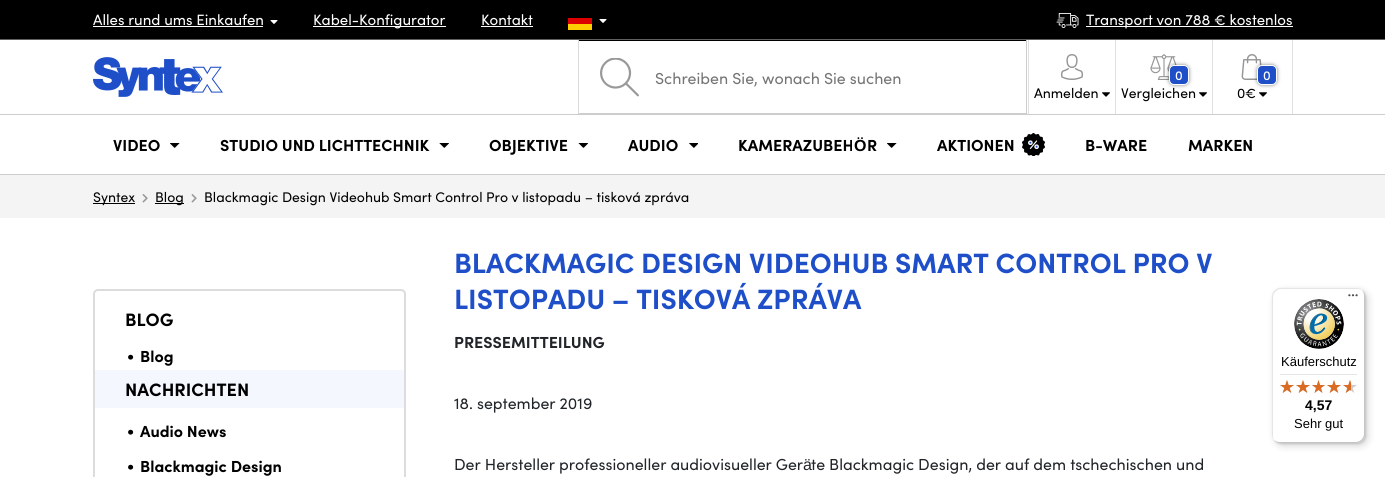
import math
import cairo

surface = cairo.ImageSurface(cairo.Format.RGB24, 1385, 477)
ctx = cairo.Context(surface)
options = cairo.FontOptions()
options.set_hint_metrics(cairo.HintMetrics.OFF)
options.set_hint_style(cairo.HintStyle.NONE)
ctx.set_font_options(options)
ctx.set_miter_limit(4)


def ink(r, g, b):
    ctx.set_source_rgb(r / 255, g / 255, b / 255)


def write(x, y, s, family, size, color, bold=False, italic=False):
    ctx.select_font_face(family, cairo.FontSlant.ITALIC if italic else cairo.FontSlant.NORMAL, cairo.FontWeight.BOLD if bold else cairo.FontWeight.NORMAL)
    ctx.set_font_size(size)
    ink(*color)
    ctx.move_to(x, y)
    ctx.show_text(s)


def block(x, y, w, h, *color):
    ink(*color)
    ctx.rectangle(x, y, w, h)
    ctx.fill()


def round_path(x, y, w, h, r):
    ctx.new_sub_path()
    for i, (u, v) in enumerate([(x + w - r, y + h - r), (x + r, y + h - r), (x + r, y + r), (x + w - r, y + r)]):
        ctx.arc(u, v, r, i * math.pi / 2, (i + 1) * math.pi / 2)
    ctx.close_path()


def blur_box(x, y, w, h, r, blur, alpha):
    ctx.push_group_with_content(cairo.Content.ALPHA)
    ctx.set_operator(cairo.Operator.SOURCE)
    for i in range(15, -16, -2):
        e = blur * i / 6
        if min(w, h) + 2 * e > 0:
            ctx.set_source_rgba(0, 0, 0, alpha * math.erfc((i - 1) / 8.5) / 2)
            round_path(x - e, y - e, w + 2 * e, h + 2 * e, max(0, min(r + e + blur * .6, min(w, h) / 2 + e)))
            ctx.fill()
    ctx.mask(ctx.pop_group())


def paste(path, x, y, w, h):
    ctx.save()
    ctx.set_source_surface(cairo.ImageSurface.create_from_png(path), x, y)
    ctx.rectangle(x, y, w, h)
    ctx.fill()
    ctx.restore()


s1 = dict(family="Sofia", size=15, color=(255, 255, 255))
s2 = dict(family="Sofia", size=16, color=(117, 117, 117))
s3 = dict(family="Sofia Medium", size=13, color=(255, 255, 255))
s4 = dict(family="Sofia", size=14, color=(0, 0, 0))
s5 = dict(family="Sofia", size=16, color=(0, 0, 0), bold=True)
s6 = dict(family="Liberation Sans", size=16, color=(0, 0, 0), bold=True)
s7 = dict(family="Sofia", size=28, color=(31, 79, 200), bold=True)
s8 = dict(family="Sofia", size=18, color=(0, 0, 0), bold=True)
s9 = dict(family="Sofia", size=16, color=(33, 37, 41), bold=True)
s10 = dict(family="Sofia", size=16, color=(33, 37, 41))
s11 = dict(family="Liberation Sans", size=16, color=(33, 37, 41))
s12 = dict(family="Liberation Sans", size=13, color=(0, 0, 0))
s13 = dict(family="Liberation Sans", size=14, color=(0, 0, 0), bold=True)

ink(255, 255, 255)
ctx.paint()
block(0, 0, 1385, 39, 0, 0, 0)
block(0, 39, 1385, 1, 96, 96, 96)
paste("pic1.png", 270, 20, 8, 4)
write(93, 25, "Alles rund ums Einkaufen", **s1)
block(93, 26, 170, 1, 255, 255, 255)
block(313, 26, 133, 1, 255, 255, 255)
write(313, 25, "Kabel-Konfigurator", **s1)
write(481, 25, "Kontakt", **s1)
block(481, 26, 52, 1, 255, 255, 255)
paste("pic1.png", 599, 19, 8, 4)
block(568, 24, 24, 6, 255, 206, 0)
block(568, 18, 24, 6, 221, 0, 0)
paste("pic2.png", 1056, 13, 23, 15)
block(1086, 26, 207, 1, 255, 255, 255)
write(1086, 25, "Transport von 788 € kostenlos", **s1)
block(0, 174, 1385, 1, 205, 205, 205)
paste("pic3.png", 93, 57, 130, 40)
block(1028, 40, 1, 74, 225, 225, 225)
paste("pic4.png", 600, 58, 39, 39)
block(578, 40, 449, 1, 0, 0, 0)
block(1026, 40, 1, 74, 205, 205, 205)
block(578, 113, 449, 1, 205, 205, 205)
block(578, 40, 1, 74, 218, 218, 218)
write(655, 84, "Schreiben Sie, wonach Sie suchen", **s2)
block(1212, 40, 1, 74, 225, 225, 225)
paste("pic5.png", 1150, 54, 27, 26)
ink(0, 0, 0)
blur_box(1169, 65, 20, 20, 5, 2, 0.5)
ink(31, 79, 200)
round_path(1169.5, 65.5, 19, 19, 4.5)
ctx.fill_preserve()
ink(255, 255, 255)
ctx.set_line_width(1)
ctx.stroke()
write(1175, 80, "0", **s3)
write(1121, 98, "Vergleichen", **s4)
paste("pic6.png", 1199, 92, 8, 5)
block(1292, 40, 1, 74, 225, 225, 225)
paste("pic7.png", 1241, 54, 21, 26)
ink(0, 0, 0)
blur_box(1257, 65, 20, 20, 5, 2, 0.5)
ink(31, 79, 200)
round_path(1257.5, 65.5, 19, 19, 4.5)
ctx.fill_preserve()
ink(255, 255, 255)
ctx.stroke()
write(1263, 80, "0", **s3)
write(1237, 98, "0€", **s4)
paste("pic6.png", 1259, 92, 8, 5)
block(1115, 40, 1, 74, 225, 225, 225)
paste("pic8.png", 1060, 54, 24, 26)
write(1034, 98, "Anmelden", **s4)
paste("pic6.png", 1102, 92, 8, 5)
block(0, 114, 1385, 1, 205, 205, 205)
write(113, 151, "VIDEO", **s5)
paste("pic9.png", 170, 143, 10, 5)
write(220, 151, "STUDIO UND LICHTTECHNIK", **s5)
paste("pic10.png", 439, 143, 10, 5)
write(489, 151, "OBJEKTIVE", **s5)
paste("pic11.png", 578, 143, 10, 5)
write(628, 151, "AUDIO", **s5)
paste("pic12.png", 689, 143, 9, 5)
write(738, 151, "KAMERAZUBEH", **s5)
write(854, 151, "Ö", **s6)
write(867, 151, "R", **s5)
paste("pic13.png", 887, 143, 10, 5)
write(937, 151, "AKTIONEN", **s5)
paste("pic14.png", 1022, 133, 23, 23)
write(1085, 151, "B-WARE", **s5)
write(1188, 151, "MARKEN", **s5)
block(0, 175, 1385, 43, 244, 244, 244)
block(93, 203, 42, 1, 0, 0, 0)
write(93, 202, "Syntex", **s4)
paste("pic15.png", 142, 194, 6, 9)
block(155, 203, 29, 1, 0, 0, 0)
write(155, 202, "Blog", **s4)
paste("pic15.png", 191, 194, 6, 9)
write(204, 202, "Blackmagic Design Videohub Smart Control Pro v listopadu – tisková zpráva", **s4)
write(454, 273, "BLACKMAGIC DESIGN VIDEOHUB SMART CONTROL PRO V", **s7)
write(454, 309, "LISTOPADU – TISKOVÁ ZPRÁVA", **s7)
round_path(94, 290, 311, 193, 4)
ink(220, 220, 220)
ctx.set_line_width(2)
ctx.stroke()
write(125, 326, "BLOG", **s8)
write(127, 361, "•", **s5)
write(140, 362, "Blog", **s5)
block(95, 370, 309, 38, 244, 247, 254)
write(125, 396, "NACHRICHTEN", **s8)
write(127, 436, "•", **s5)
write(140, 437, "Audio News", **s5)
write(127, 471, "•", **s5)
write(140, 472, "Blackmagic Design", **s5)
write(454, 348, "PRESSEMITTEILUNG", **s9)
write(454, 409, "18. september 2019", **s10)
write(454, 470, "Der Hersteller professioneller audiovisueller Ger", **s10)
write(803, 470, "ä", **s11)
write(811, 470, "te Blackmagic Design, der auf dem tschechischen und", **s10)
ink(0, 0, 0)
blur_box(1275, 291, 93, 155, 8, 4, 0.15)
blur_box(1273, 289, 93, 155, 8, 1, 0.15)
ink(255, 255, 255)
round_path(1272, 288, 93, 155, 8)
ctx.fill()
ink(229, 229, 229)
ctx.new_path()
ctx.move_to(1281, 289)
ctx.line_to(1358, 289)
ctx.curve_to(1360, 289, 1362, 290, 1364, 292)
ctx.curve_to(1362, 290, 1360, 288, 1357, 288)
ctx.line_to(1280, 288)
ctx.curve_to(1276, 288, 1272, 292, 1272, 296)
ctx.line_to(1272, 435)
ctx.curve_to(1272, 438, 1274, 440, 1276, 442)
ctx.curve_to(1274, 440, 1273, 438, 1273, 436)
ctx.line_to(1273, 297)
ctx.curve_to(1273, 293, 1277, 289, 1281, 289)
ctx.close_path()
ctx.fill()
ink(204, 204, 204)
ctx.new_path()
ctx.move_to(1273, 439)
ctx.curve_to(1275, 441, 1277, 443, 1280, 443)
ctx.line_to(1357, 443)
ctx.curve_to(1361, 443, 1365, 439, 1365, 435)
ctx.line_to(1365, 296)
ctx.curve_to(1365, 293, 1363, 291, 1361, 289)
ctx.curve_to(1363, 291, 1364, 293, 1364, 295)
ctx.line_to(1364, 434)
ctx.curve_to(1364, 438, 1360, 442, 1356, 442)
ctx.line_to(1279, 442)
ctx.curve_to(1277, 442, 1275, 441, 1273, 439)
ctx.close_path()
ctx.fill()
ctx.set_source_rgba(0.196, 0.196, 0.196, 0.2)
ctx.new_path()
ctx.move_to(1274, 440)
ctx.curve_to(1275, 442, 1278, 443, 1280, 443)
ctx.line_to(1357, 443)
ctx.curve_to(1361, 443, 1365, 439, 1365, 435)
ctx.line_to(1365, 296)
ctx.curve_to(1365, 294, 1364, 291, 1362, 290)
ctx.curve_to(1363, 291, 1364, 293, 1364, 295)
ctx.line_to(1364, 434)
ctx.curve_to(1364, 439, 1361, 442, 1356, 442)
ctx.line_to(1279, 442)
ctx.curve_to(1277, 442, 1275, 441, 1274, 440)
ctx.close_path()
ctx.fill()
ctx.set_source_rgba(1, 1, 1, 0.3)
ctx.new_path()
ctx.move_to(1364, 296)
ctx.curve_to(1364, 291, 1361, 288, 1356, 288)
ctx.line_to(1357, 288)
ctx.curve_to(1361, 288, 1365, 292, 1365, 296)
ctx.line_to(1365, 435)
ctx.curve_to(1365, 439, 1361, 443, 1357, 443)
ctx.line_to(1280, 443)
ctx.curve_to(1276, 443, 1272, 439, 1272, 435)
ctx.line_to(1272, 434)
ctx.curve_to(1272, 439, 1275, 442, 1280, 442)
ctx.line_to(1356, 442)
ctx.curve_to(1361, 442, 1364, 439, 1364, 434)
ctx.close_path()
ctx.fill()
paste("pic16.png", 1348, 294, 10, 3)
paste("pic17.png", 1294, 299, 50, 50)
write(1281, 366, "Käuferschutz", **s12)
block(1280, 374, 77, 1, 229, 229, 229)
paste("pic18.png", 1280, 380, 14, 13)
paste("pic18.png", 1296, 380, 14, 13)
paste("pic19.png", 1312, 380, 13, 13)
paste("pic18.png", 1327, 380, 14, 13)
paste("pic18.png", 1343, 380, 14, 13)
paste("pic20.png", 1280, 380, 14, 13)
paste("pic20.png", 1296, 380, 14, 13)
paste("pic21.png", 1312, 380, 13, 13)
paste("pic20.png", 1327, 380, 14, 13)
paste("pic22.png", 1343, 380, 8, 13)
write(1305, 410, "4,57", **s13)
write(1294, 428, "Sehr gut", **s12)
surface.write_to_png("screenshot.png")
